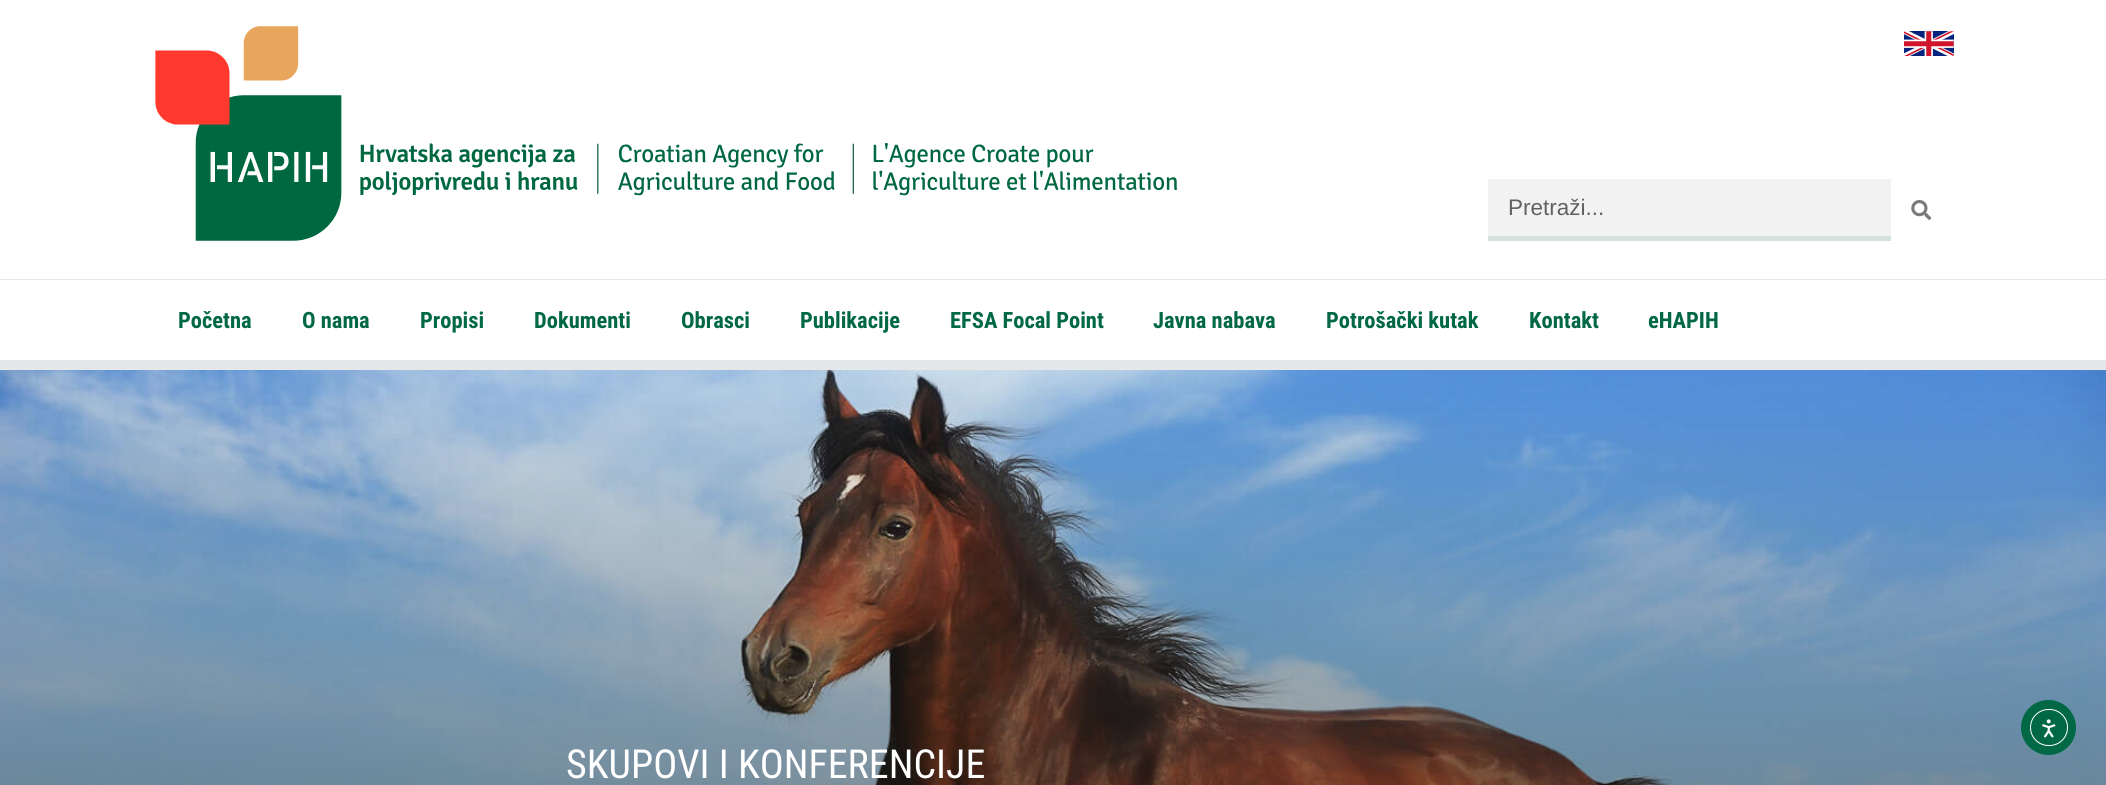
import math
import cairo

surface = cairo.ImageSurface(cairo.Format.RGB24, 2106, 785)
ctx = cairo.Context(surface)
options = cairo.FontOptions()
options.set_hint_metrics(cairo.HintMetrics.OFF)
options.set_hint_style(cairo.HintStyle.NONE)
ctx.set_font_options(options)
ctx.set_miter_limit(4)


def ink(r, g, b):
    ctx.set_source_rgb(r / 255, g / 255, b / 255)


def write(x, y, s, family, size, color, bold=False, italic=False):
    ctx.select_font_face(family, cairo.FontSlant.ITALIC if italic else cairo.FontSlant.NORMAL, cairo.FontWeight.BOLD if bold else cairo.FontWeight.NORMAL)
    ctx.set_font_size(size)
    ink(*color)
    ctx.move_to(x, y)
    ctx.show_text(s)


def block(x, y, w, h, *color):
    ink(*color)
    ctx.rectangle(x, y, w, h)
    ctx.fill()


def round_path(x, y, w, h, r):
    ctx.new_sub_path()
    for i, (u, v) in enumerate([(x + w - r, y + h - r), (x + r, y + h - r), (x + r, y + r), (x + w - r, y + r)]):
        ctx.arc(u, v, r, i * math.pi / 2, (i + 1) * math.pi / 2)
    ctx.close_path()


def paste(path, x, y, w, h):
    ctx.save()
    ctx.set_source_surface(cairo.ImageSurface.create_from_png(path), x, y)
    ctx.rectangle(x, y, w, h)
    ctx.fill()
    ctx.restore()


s1 = dict(family="Liberation Sans", size=22.5, color=(97, 97, 97))
s2 = dict(family="Roboto Condensed", size=22.5, color=(0, 104, 69), bold=True)
s3 = dict(family="Roboto Condensed", size=40, color=(255, 255, 255))

ink(255, 255, 255)
ctx.paint()
paste("pic1.png", 155, 26, 1022, 215)
paste("pic2.png", 1904, 31, 50, 25)
block(1488, 179, 403, 57, 242, 242, 242)
block(1488, 236, 403, 5, 213, 225, 221)
write(1508, 215, "Pretraži...", **s1)
paste("pic3.png", 1911, 200, 21, 20)
block(0, 279, 2106, 1, 230, 231, 232)
block(0, 360, 2106, 10, 230, 231, 232)
write(178, 328, "Početna", **s2)
write(302, 328, "O nama", **s2)
write(420, 328, "Propisi", **s2)
write(534, 328, "Dokumenti", **s2)
write(681, 328, "Obrasci", **s2)
write(800, 328, "Publikacije", **s2)
write(950, 328, "EFSA Focal Point", **s2)
write(1153, 328, "Javna nabava", **s2)
write(1326, 328, "Potrošački kutak", **s2)
write(1529, 328, "Kontakt", **s2)
write(1648, 328, "eHAPIH", **s2)
paste("pic5.png", 0, 370, 2106, 415)
ctx.arc(2048.5, 727.5, 27.5, 0, 2 * math.pi)
ctx.fill()
round_path(2030.5, 709.5, 37, 36, 18)
ink(255, 255, 255)
ctx.set_line_width(1)
ctx.stroke()
paste("pic4.png", 2042, 719, 14, 19)
write(566, 778, "SKUPOVI I KONFERENCIJE", **s3)
surface.write_to_png("screenshot.png")
